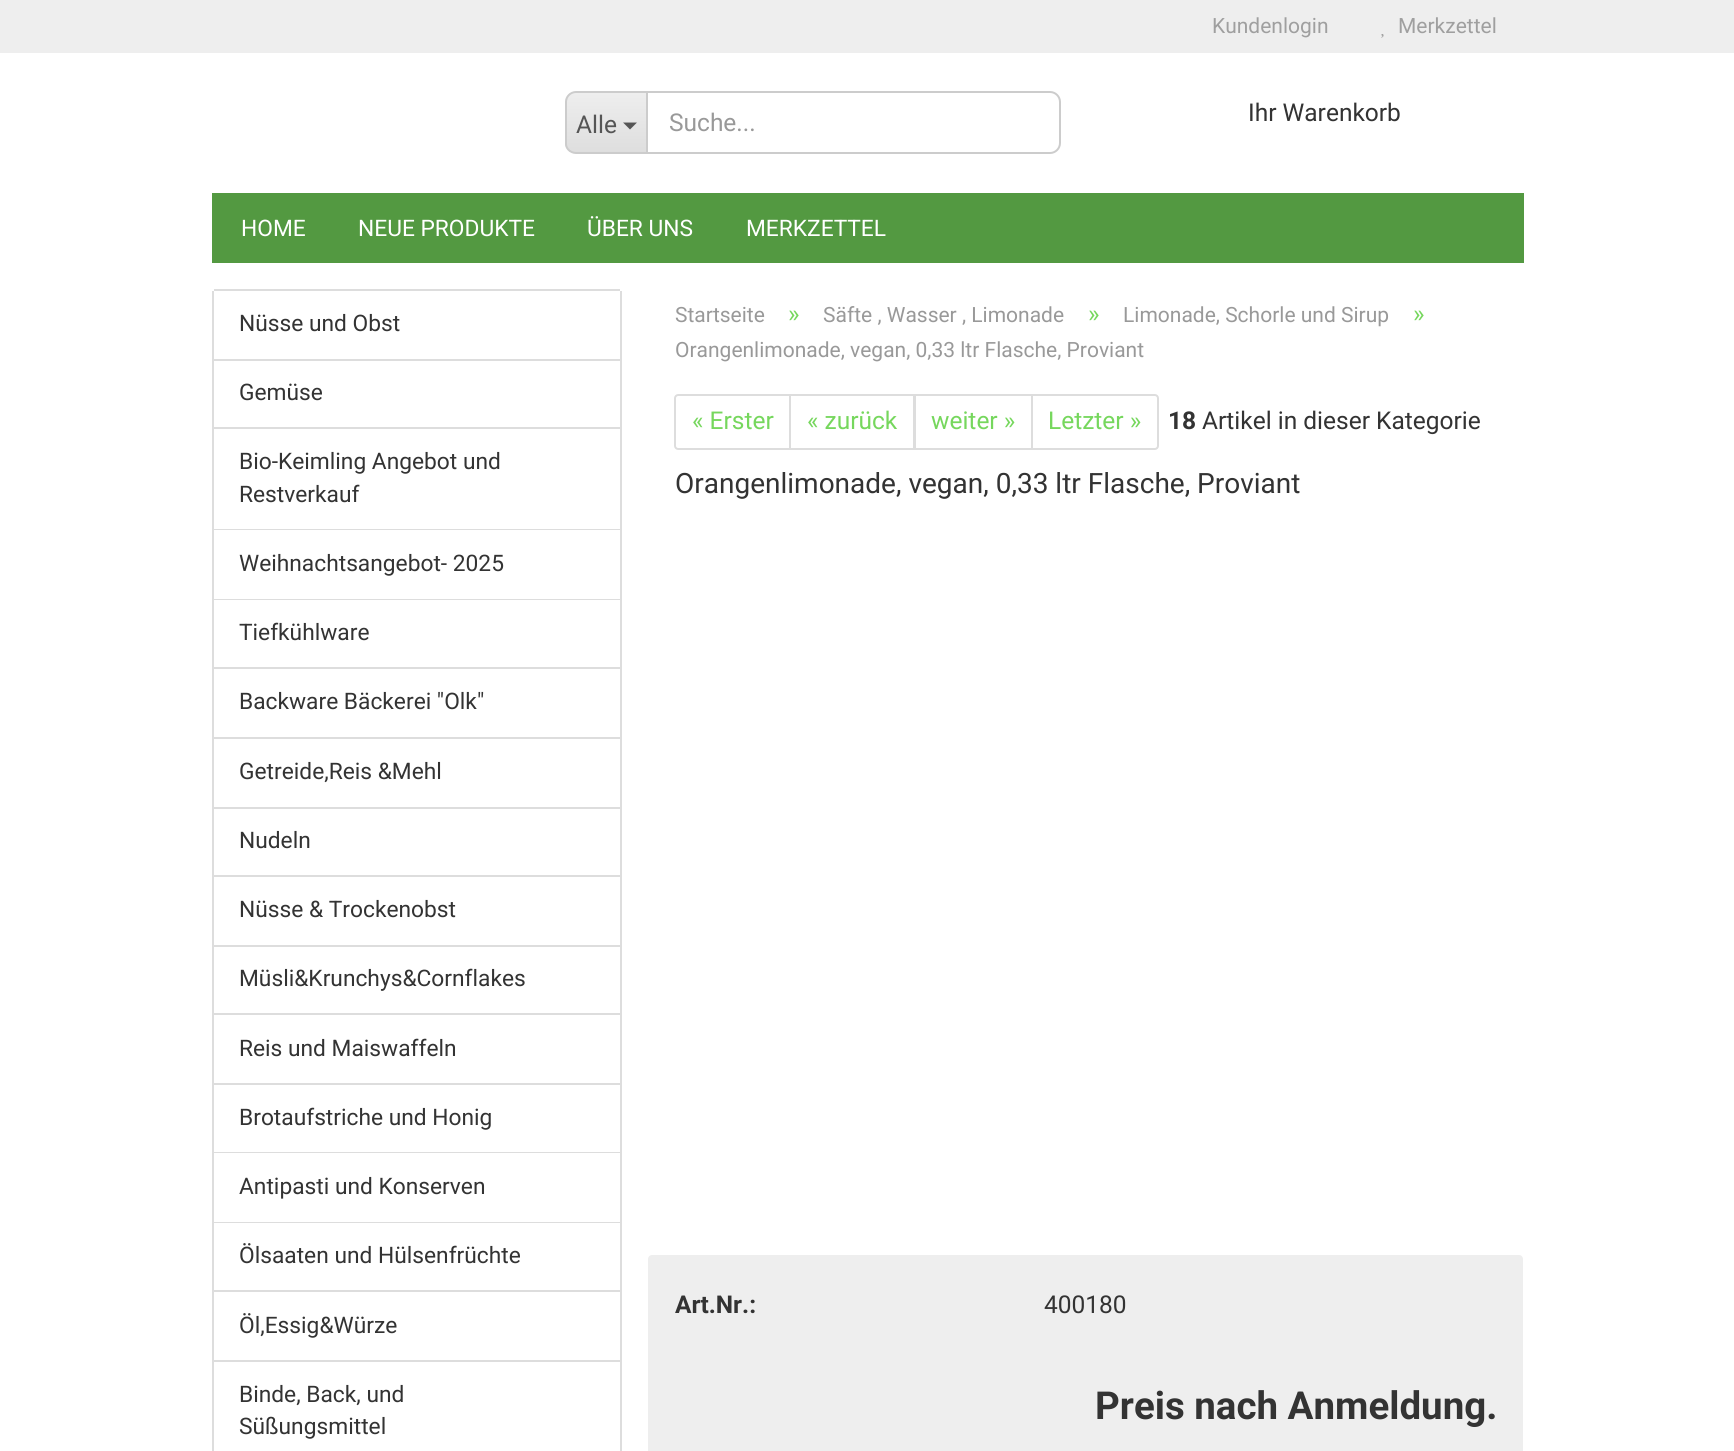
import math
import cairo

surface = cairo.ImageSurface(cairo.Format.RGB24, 1734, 1451)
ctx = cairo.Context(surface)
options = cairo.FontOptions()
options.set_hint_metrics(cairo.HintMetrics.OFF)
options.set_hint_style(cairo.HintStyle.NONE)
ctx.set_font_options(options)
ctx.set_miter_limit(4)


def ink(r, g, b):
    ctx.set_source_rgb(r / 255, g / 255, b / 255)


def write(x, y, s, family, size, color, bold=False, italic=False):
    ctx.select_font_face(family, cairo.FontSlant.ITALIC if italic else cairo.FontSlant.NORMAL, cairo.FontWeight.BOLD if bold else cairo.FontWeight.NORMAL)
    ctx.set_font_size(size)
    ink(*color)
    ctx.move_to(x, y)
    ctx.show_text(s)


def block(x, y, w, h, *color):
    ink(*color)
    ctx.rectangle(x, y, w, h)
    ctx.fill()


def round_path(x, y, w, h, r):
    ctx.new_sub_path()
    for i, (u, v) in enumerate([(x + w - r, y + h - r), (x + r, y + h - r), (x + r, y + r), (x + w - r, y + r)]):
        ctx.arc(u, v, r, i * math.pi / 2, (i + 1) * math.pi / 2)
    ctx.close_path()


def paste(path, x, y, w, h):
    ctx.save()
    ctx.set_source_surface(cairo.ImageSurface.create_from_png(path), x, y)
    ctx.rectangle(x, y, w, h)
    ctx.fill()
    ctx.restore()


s1 = dict(family="Roboto", size=21, color=(159, 159, 159))
s2 = dict(family="Roboto", size=24.5, color=(85, 85, 85))
s3 = dict(family="Roboto", size=24.5, color=(153, 153, 153))
s4 = dict(family="Roboto", size=24.5, color=(51, 51, 51))
s5 = dict(family="Roboto", size=22.75, color=(255, 255, 255))
s6 = dict(family="Roboto", size=22.75, color=(51, 51, 51))
s7 = dict(family="Roboto", size=21, color=(153, 153, 153))
s8 = dict(family="Roboto", size=24.5, color=(118, 215, 93))
s9 = dict(family="Roboto", size=24.5, color=(51, 51, 51), bold=True)
s10 = dict(family="Roboto", size=28, color=(51, 51, 51))
s11 = dict(family="Roboto", size=38.5, color=(51, 51, 51), bold=True)

ink(255, 255, 255)
ctx.paint()
block(0, 0, 1734, 53, 238, 238, 238)
write(1212, 33, "Kundenlogin", **s1)
write(1398, 33, "Merkzettel", **s1)
paste("pic1.png", 1381, 34, 3, 4)
ctx.save()
ctx.new_path()
ctx.move_to(576, 91)
ctx.line_to(646, 91)
ctx.line_to(646, 154)
ctx.line_to(576, 154)
ctx.curve_to(570, 154, 565, 149, 565, 143)
ctx.line_to(565, 102)
ctx.curve_to(565, 96, 570, 91, 576, 91)
ctx.close_path()
ctx.clip()
gradient = cairo.LinearGradient(606, 93, 606, 152)
gradient.add_color_stop_rgba(0, 0.933, 0.933, 0.933, 1)
gradient.add_color_stop_rgba(1, 0.871, 0.871, 0.871, 1)
ctx.set_source(gradient)
ctx.rectangle(565, 93, 81, 59)
ctx.fill()
ctx.restore()
ink(204, 204, 204)
ctx.set_fill_rule(cairo.FillRule.EVEN_ODD)
ctx.new_path()
ctx.move_to(576, 91)
ctx.line_to(646, 91)
ctx.line_to(646, 154)
ctx.line_to(576, 154)
ctx.curve_to(570, 154, 565, 149, 565, 144)
ctx.line_to(565, 102)
ctx.curve_to(565, 96, 570, 91, 576, 91)
ctx.close_path()
ctx.move_to(576, 93)
ctx.line_to(646, 93)
ctx.line_to(646, 152)
ctx.line_to(576, 152)
ctx.curve_to(571, 152, 567, 148, 567, 144)
ctx.line_to(567, 102)
ctx.curve_to(567, 97, 571, 93, 576, 93)
ctx.close_path()
ctx.fill()
write(576, 133, "Alle", **s2)
ctx.set_fill_rule(cairo.FillRule.WINDING)
ctx.new_path()
ctx.move_to(623, 122.5)
ctx.line_to(637, 122.5)
ctx.line_to(630, 129.5)
ctx.close_path()
ctx.fill()
ctx.new_path()
ctx.move_to(647, 92)
ctx.line_to(1050, 92)
ctx.curve_to(1055.5, 92, 1060, 96.5, 1060, 102)
ctx.line_to(1060, 143)
ctx.curve_to(1060, 148.5, 1055.5, 153, 1050, 153)
ctx.line_to(647, 153)
ctx.close_path()
ink(204, 204, 204)
ctx.stroke()
write(669, 131, "Suche...", **s3)
write(1248, 121, "Ihr Warenkorb", **s4)
block(212, 193, 1312, 70, 83, 153, 65)
write(241, 236, "HOME", **s5)
write(358, 236, "NEUE PRODUKTE", **s5)
write(587, 236, "ÜBER UNS", **s5)
write(746, 236, "MERKZETTEL", **s5)
block(214, 289, 406, 2, 221, 221, 221)
block(620, 291, 2, 1160, 221, 221, 221)
block(212, 291, 2, 1160, 221, 221, 221)
block(214, 359, 406, 2, 221, 221, 221)
write(239, 331, "Nüsse und Obst", **s6)
block(214, 427, 406, 2, 221, 221, 221)
write(239, 400, "Gemüse", **s6)
block(214, 529, 406, 1, 221, 221, 221)
write(239, 469, "Bio-Keimling Angebot und", **s6)
write(239, 502, "Restverkauf", **s6)
block(214, 599, 406, 1, 221, 221, 221)
write(239, 571, "Weihnachtsangebot- 2025", **s6)
block(214, 667, 406, 2, 221, 221, 221)
write(239, 640, "Tiefkühlware", **s6)
block(214, 737, 406, 2, 221, 221, 221)
write(239, 709, "Backware Bäckerei \"Olk\"", **s6)
block(214, 807, 406, 2, 221, 221, 221)
write(239, 779, "Getreide,Reis &Mehl", **s6)
block(214, 875, 406, 2, 221, 221, 221)
write(239, 848, "Nudeln", **s6)
block(214, 945, 406, 2, 221, 221, 221)
write(239, 917, "Nüsse & Trockenobst", **s6)
block(214, 1013, 406, 2, 221, 221, 221)
write(239, 986, "Müsli&Krunchys&Cornflakes", **s6)
block(214, 1083, 406, 2, 221, 221, 221)
write(239, 1056, "Reis und Maiswaffeln", **s6)
block(214, 1152, 406, 1, 221, 221, 221)
write(239, 1125, "Brotaufstriche und Honig", **s6)
block(214, 1222, 406, 1, 221, 221, 221)
write(239, 1194, "Antipasti und Konserven", **s6)
block(214, 1290, 406, 2, 221, 221, 221)
write(239, 1263, "Ölsaaten und Hülsenfrüchte", **s6)
block(214, 1360, 406, 2, 221, 221, 221)
write(239, 1333, "Öl,Essig&Würze", **s6)
write(239, 1402, "Binde, Back, und", **s6)
write(239, 1434, "Süßungsmittel", **s6)
write(675, 322, "Startseite", **s7)
write(788, 322, "»", **s8)
write(823, 322, "Säfte , Wasser , Limonade", **s7)
write(1088, 322, "»", **s8)
write(1123, 322, "Limonade, Schorle und Sirup", **s7)
write(1413, 322, "»", **s8)
write(675, 357, "Orangenlimonade, vegan, 0,33 ltr Flasche, Proviant", **s7)
ctx.new_path()
ctx.move_to(678, 395)
ctx.line_to(790, 395)
ctx.line_to(790, 449)
ctx.line_to(678, 449)
ctx.curve_to(676.5, 449, 675, 447.5, 675, 446)
ctx.line_to(675, 398)
ctx.curve_to(675, 396.5, 676.5, 395, 678, 395)
ctx.close_path()
ink(221, 221, 221)
ctx.stroke()
write(692, 429, "« Erster", **s8)
ctx.rectangle(790, 395, 124, 54)
ink(221, 221, 221)
ctx.stroke()
write(807, 429, "« zurück", **s8)
ctx.rectangle(915, 395, 117, 54)
ink(221, 221, 221)
ctx.stroke()
write(931, 429, "weiter »", **s8)
ink(255, 255, 255)
ctx.new_path()
ctx.move_to(1032, 395)
ctx.line_to(1155, 395)
ctx.curve_to(1156.5, 395, 1158, 396.5, 1158, 398)
ctx.line_to(1158, 446)
ctx.curve_to(1158, 447.5, 1156.5, 449, 1155, 449)
ctx.line_to(1032, 449)
ctx.close_path()
ctx.fill_preserve()
ink(221, 221, 221)
ctx.stroke()
write(1048, 429, "Letzter »", **s8)
write(1168, 429, "18", **s9)
write(1202, 429, "Artikel in dieser Kategorie", **s4)
write(675, 493, "Orangenlimonade, vegan, 0,33 ltr Flasche, Proviant", **s10)
ink(238, 238, 238)
round_path(648, 1255, 875, 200, 4)
ctx.fill()
write(675, 1313, "Art.Nr.:", **s9)
write(1044, 1313, "400180", **s4)
write(1095, 1419, "Preis nach Anmeldung.", **s11)
surface.write_to_png("screenshot.png")
